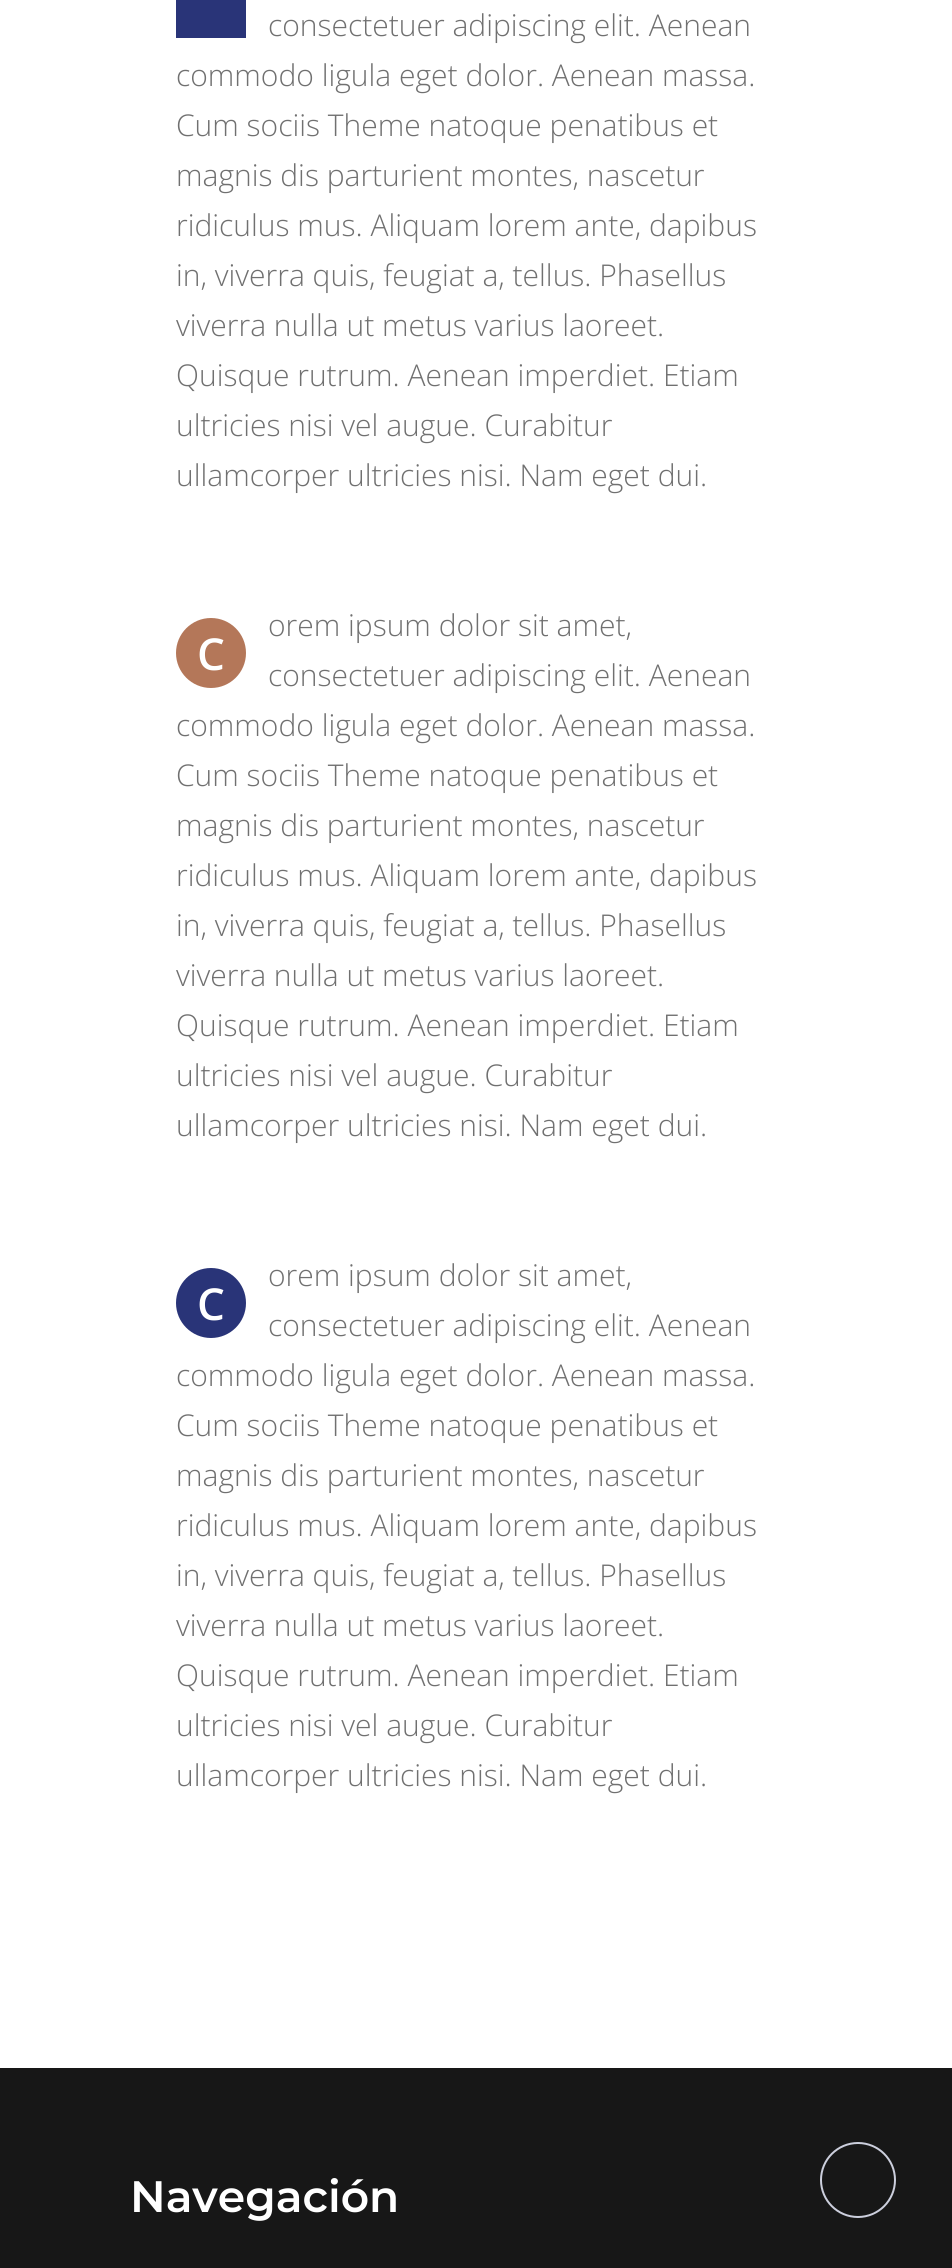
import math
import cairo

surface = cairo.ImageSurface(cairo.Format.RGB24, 952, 2268)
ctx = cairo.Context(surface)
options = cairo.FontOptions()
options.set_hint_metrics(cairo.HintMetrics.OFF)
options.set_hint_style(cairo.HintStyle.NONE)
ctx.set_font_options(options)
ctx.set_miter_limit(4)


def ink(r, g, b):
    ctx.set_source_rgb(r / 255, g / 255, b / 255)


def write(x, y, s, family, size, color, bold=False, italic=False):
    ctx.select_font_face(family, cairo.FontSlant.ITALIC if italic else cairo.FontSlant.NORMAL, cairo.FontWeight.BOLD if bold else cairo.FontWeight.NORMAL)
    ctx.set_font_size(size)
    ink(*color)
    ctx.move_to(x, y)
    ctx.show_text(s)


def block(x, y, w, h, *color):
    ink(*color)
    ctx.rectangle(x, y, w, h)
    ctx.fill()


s1 = dict(family="Open Sans Light", size=30, color=(112, 112, 112))
s2 = dict(family="Open Sans SemiBold", size=44, color=(255, 255, 255))
s3 = dict(family="Montserrat SemiBold", size=44, color=(255, 255, 255))

ink(255, 255, 255)
ctx.paint()
block(176, 0, 70, 38, 41, 52, 120)
write(268, 36, "consectetuer adipiscing elit. Aenean", **s1)
write(176, 86, "commodo ligula eget dolor. Aenean massa.", **s1)
write(176, 136, "Cum sociis Theme natoque penatibus et", **s1)
write(176, 186, "magnis dis parturient montes, nascetur", **s1)
write(176, 236, "ridiculus mus. Aliquam lorem ante, dapibus", **s1)
write(176, 286, "in, viverra quis, feugiat a, tellus. Phasellus", **s1)
write(176, 336, "viverra nulla ut metus varius laoreet.", **s1)
write(176, 386, "Quisque rutrum. Aenean imperdiet. Etiam", **s1)
write(176, 436, "ultricies nisi vel augue. Curabitur", **s1)
write(176, 486, "ullamcorper ultricies nisi. Nam eget dui.", **s1)
write(268, 636, "orem ipsum dolor sit amet,", **s1)
ink(180, 119, 89)
ctx.new_path()
ctx.arc(211, 653, 35, 0, 2 * math.pi)
ctx.fill()
write(197, 670, "C", **s2)
write(268, 686, "consectetuer adipiscing elit. Aenean", **s1)
write(176, 736, "commodo ligula eget dolor. Aenean massa.", **s1)
write(176, 786, "Cum sociis Theme natoque penatibus et", **s1)
write(176, 836, "magnis dis parturient montes, nascetur", **s1)
write(176, 886, "ridiculus mus. Aliquam lorem ante, dapibus", **s1)
write(176, 936, "in, viverra quis, feugiat a, tellus. Phasellus", **s1)
write(176, 986, "viverra nulla ut metus varius laoreet.", **s1)
write(176, 1036, "Quisque rutrum. Aenean imperdiet. Etiam", **s1)
write(176, 1086, "ultricies nisi vel augue. Curabitur", **s1)
write(176, 1136, "ullamcorper ultricies nisi. Nam eget dui.", **s1)
write(268, 1286, "orem ipsum dolor sit amet,", **s1)
ink(41, 52, 120)
ctx.new_path()
ctx.arc(211, 1303, 35, 0, 2 * math.pi)
ctx.fill()
write(197, 1320, "C", **s2)
write(268, 1336, "consectetuer adipiscing elit. Aenean", **s1)
write(176, 1386, "commodo ligula eget dolor. Aenean massa.", **s1)
write(176, 1436, "Cum sociis Theme natoque penatibus et", **s1)
write(176, 1486, "magnis dis parturient montes, nascetur", **s1)
write(176, 1536, "ridiculus mus. Aliquam lorem ante, dapibus", **s1)
write(176, 1586, "in, viverra quis, feugiat a, tellus. Phasellus", **s1)
write(176, 1636, "viverra nulla ut metus varius laoreet.", **s1)
write(176, 1686, "Quisque rutrum. Aenean imperdiet. Etiam", **s1)
write(176, 1736, "ultricies nisi vel augue. Curabitur", **s1)
write(176, 1786, "ullamcorper ultricies nisi. Nam eget dui.", **s1)
block(0, 2068, 952, 200, 23, 23, 23)
write(130, 2212, "Navegación", **s3)
ctx.new_path()
ctx.arc(858, 2180, 37, 0, 2 * math.pi)
ink(204, 207, 221)
ctx.stroke()
surface.write_to_png("screenshot.png")
